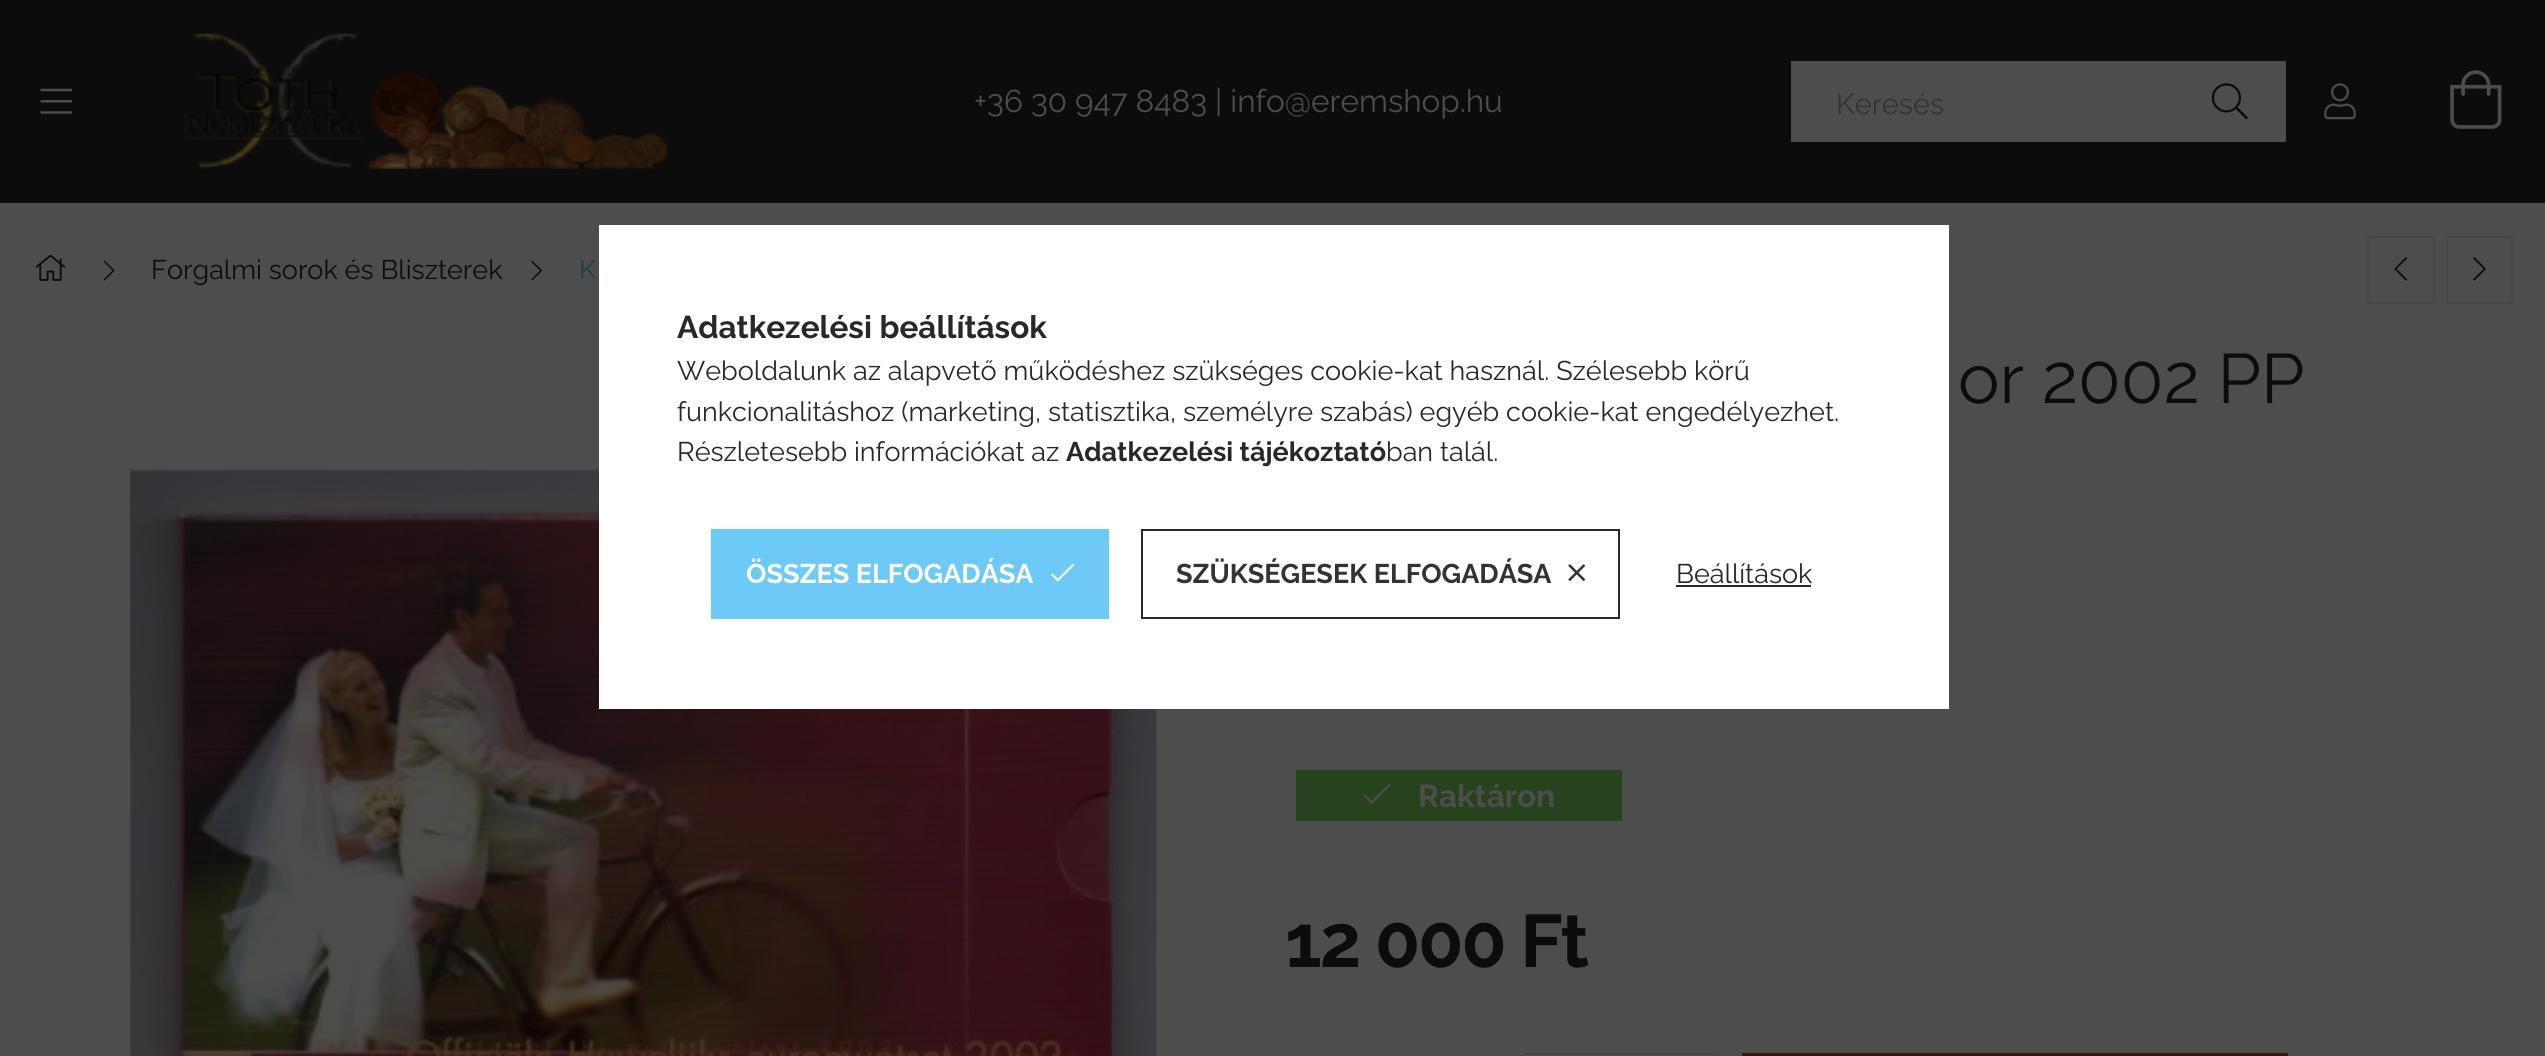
import math
import cairo

surface = cairo.ImageSurface(cairo.Format.RGB24, 2545, 1056)
ctx = cairo.Context(surface)
options = cairo.FontOptions()
options.set_hint_metrics(cairo.HintMetrics.OFF)
options.set_hint_style(cairo.HintStyle.NONE)
ctx.set_font_options(options)
ctx.set_miter_limit(4)


def ink(r, g, b):
    ctx.set_source_rgb(r / 255, g / 255, b / 255)


def write(x, y, s, family, size, color, bold=False, italic=False):
    ctx.select_font_face(family, cairo.FontSlant.ITALIC if italic else cairo.FontSlant.NORMAL, cairo.FontWeight.BOLD if bold else cairo.FontWeight.NORMAL)
    ctx.set_font_size(size)
    ink(*color)
    ctx.move_to(x, y)
    ctx.show_text(s)


def write_spaced(x, y, s, letter, word):
    ctx.move_to(x, y)
    for ch in s:
        ctx.show_text(ch)
        ctx.rel_move_to(letter + word * (ch == ' '), 0)


def block(x, y, w, h, *color):
    ink(*color)
    ctx.rectangle(x, y, w, h)
    ctx.fill()


def paste(path, x, y, w, h):
    ctx.save()
    ctx.set_source_surface(cairo.ImageSurface.create_from_png(path), x, y)
    ctx.rectangle(x, y, w, h)
    ctx.fill()
    ctx.restore()


s1 = dict(family="Raleway", size=31.5, color=(77, 77, 77))
s2 = dict(family="Raleway", size=29, color=(51, 51, 51))
s3 = dict(family="Raleway", size=27, color=(12, 12, 12))
s4 = dict(family="Raleway", size=27, color=(33, 60, 74))
s5 = dict(family="Raleway", size=69.75, color=(12, 12, 12))
s6 = dict(family="Raleway", size=31.5, color=(77, 77, 77), bold=True)
s7 = dict(family="Raleway", size=31.5, color=(40, 40, 40), bold=True)
s8 = dict(family="Raleway", size=27, color=(40, 40, 40))
s9 = dict(family="Raleway", size=27, color=(40, 40, 40), bold=True)
s10 = dict(family="Raleway", size=27, color=(255, 255, 255), bold=True)
s11 = dict(family="Raleway", size=27, color=(51, 51, 51), bold=True)

ink(77, 77, 77)
ctx.paint()
block(0, 0, 2545, 203, 12, 12, 12)
paste("pic1.png", 40, 88, 32, 26)
paste("pic2.png", 184, 33, 485, 136)
write(974, 112, "+36 30 947 8483 | info@eremshop.hu", **s1)
block(1791, 61, 495, 81, 77, 77, 77)
write(1836, 114, "Keresés", **s2)
paste("pic3.png", 2211, 83, 37, 37)
paste("pic4.png", 2324, 83, 32, 37)
paste("pic5.png", 2450, 70, 52, 59)
paste("pic6.png", 35, 254, 31, 27)
paste("pic7.png", 103, 260, 12, 21)
write(151, 279, "Forgalmi sorok és Bliszterek", **s3)
paste("pic8.png", 531, 260, 11, 21)
write(579, 279, "K", **s4)
ctx.rectangle(2368, 237, 66, 66)
ink(70, 70, 70)
ctx.stroke()
paste("pic9.png", 2394, 257, 14, 24)
ctx.rectangle(2447, 237, 65, 66)
ctx.stroke()
paste("pic10.png", 2473, 257, 13, 24)
paste("pic11.png", 130, 469, 1027, 587)
write(1958, 403, "or 2002 PP", **s5)
block(1296, 770, 326, 51, 38, 67, 29)
paste("pic12.png", 1363, 783, 28, 21)
write(1418, 807, "Raktáron", **s6)
ctx.set_font_size(74.25)
ink(12, 12, 12)
write_spaced(1285, 967, "12 000 Ft", -2.25, 0)
ctx.rectangle(1524, 1054, 194, 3)
ink(70, 70, 70)
ctx.stroke()
block(1742, 1053, 546, 3, 57, 23, 16)
block(599, 225, 1350, 484, 255, 255, 255)
write(677, 338, "Adatkezelési beállítások", **s7)
write(677, 380, "Weboldalunk az alapvető működéshez szükséges cookie-kat használ. Szélesebb körű", **s8)
write(677, 421, "funkcionalitáshoz (marketing, statisztika, személyre szabás) egyéb cookie-kat engedélyezhet.", **s8)
write(677, 461, "Részletesebb információkat az", **s8)
write(1066, 461, "Adatkezelési tájékoztató", **s9)
write(1386, 461, "ban talál.", **s8)
block(711, 529, 398, 90, 109, 201, 247)
write(746, 583, "ÖSSZES ELFOGADÁSA", **s10)
paste("pic13.png", 1051, 563, 24, 19)
ctx.rectangle(1142, 530, 477, 88)
ink(40, 40, 40)
ctx.stroke()
write(1176, 583, "SZÜKSÉGESEK ELFOGADÁSA", **s11)
paste("pic14.png", 1568, 564, 18, 17)
write(1676, 583, "Beállítások", **s8)
block(1676, 585, 135, 2, 40, 40, 40)
surface.write_to_png("screenshot.png")
